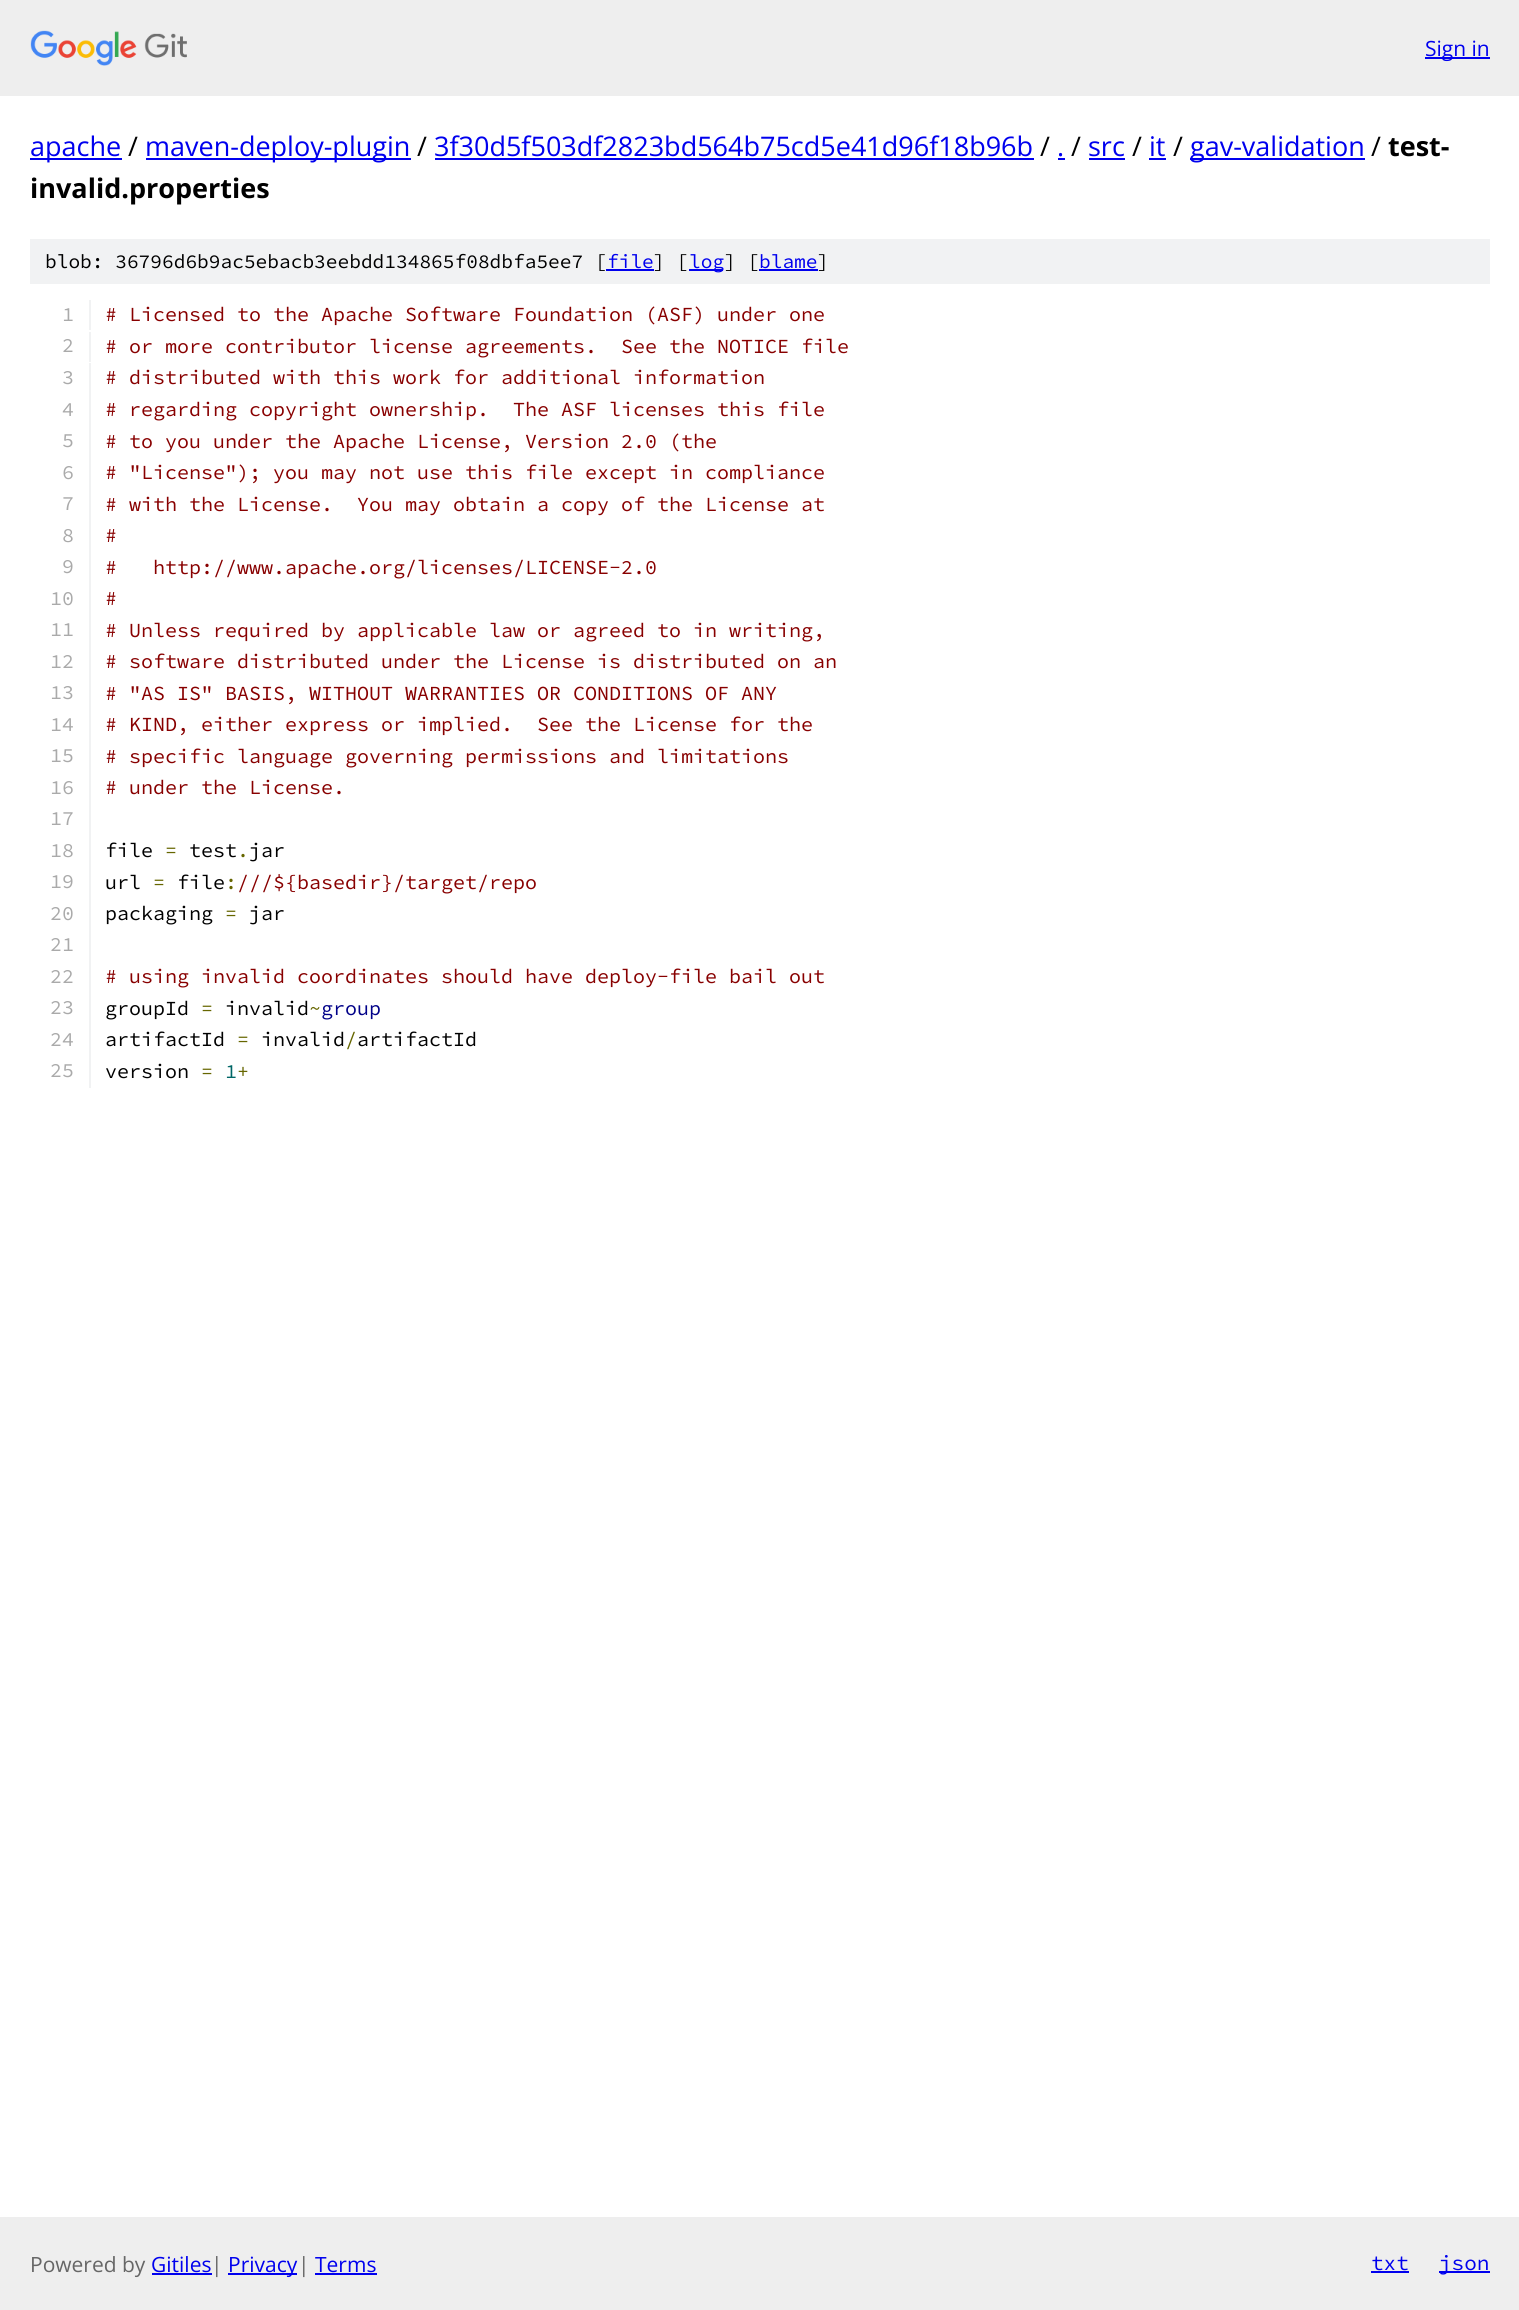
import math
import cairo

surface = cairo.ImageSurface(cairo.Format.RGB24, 1519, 2310)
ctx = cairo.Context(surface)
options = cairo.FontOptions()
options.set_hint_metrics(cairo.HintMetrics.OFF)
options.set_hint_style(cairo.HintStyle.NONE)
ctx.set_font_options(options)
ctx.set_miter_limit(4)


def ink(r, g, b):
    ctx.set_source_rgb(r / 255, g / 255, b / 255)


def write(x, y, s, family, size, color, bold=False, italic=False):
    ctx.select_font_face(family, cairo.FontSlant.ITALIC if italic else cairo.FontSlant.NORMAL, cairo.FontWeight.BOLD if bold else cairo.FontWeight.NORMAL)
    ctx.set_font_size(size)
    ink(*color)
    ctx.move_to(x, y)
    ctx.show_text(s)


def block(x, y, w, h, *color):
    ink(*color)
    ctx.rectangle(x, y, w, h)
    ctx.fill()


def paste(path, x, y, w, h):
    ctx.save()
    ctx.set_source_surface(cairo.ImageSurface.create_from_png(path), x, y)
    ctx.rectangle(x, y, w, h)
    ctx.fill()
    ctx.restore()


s1 = dict(family="Open Sans", size=21, color=(0, 0, 238))
s2 = dict(family="Open Sans", size=27, color=(0, 0, 238))
s3 = dict(family="Open Sans", size=27, color=(0, 0, 0))
s4 = dict(family="Open Sans", size=27, color=(0, 0, 0), bold=True)
s5 = dict(family="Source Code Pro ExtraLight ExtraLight", size=19.5, color=(0, 0, 0))
s6 = dict(family="Source Code Pro ExtraLight ExtraLight", size=19.5, color=(0, 0, 238))
s7 = dict(family="Source Code Pro ExtraLight ExtraLight", size=20, color=(170, 170, 170))
s8 = dict(family="Source Code Pro ExtraLight ExtraLight", size=20, color=(136, 0, 0))
s9 = dict(family="Source Code Pro ExtraLight ExtraLight", size=20, color=(0, 0, 0))
s10 = dict(family="Source Code Pro ExtraLight ExtraLight", size=20, color=(102, 102, 0))
s11 = dict(family="Source Code Pro ExtraLight ExtraLight", size=20, color=(0, 0, 136))
s12 = dict(family="Source Code Pro ExtraLight ExtraLight", size=20, color=(0, 102, 102))
s13 = dict(family="Open Sans", size=21, color=(102, 102, 102))
s14 = dict(family="Source Code Pro ExtraLight ExtraLight", size=21, color=(0, 0, 238))

ink(255, 255, 255)
ctx.paint()
block(0, 0, 1519, 96, 238, 238, 238)
paste("pic1.png", 30, 30, 157, 36)
block(1425, 57, 65, 2, 0, 0, 238)
write(1425, 56, "Sign in", **s1)
block(30, 158, 92, 2, 0, 0, 238)
write(30, 156, "apache", **s2)
write(128, 156, "/", **s3)
block(146, 158, 265, 2, 0, 0, 238)
write(145, 156, "maven-deploy-plugin", **s2)
write(417, 156, "/", **s3)
write(434, 156, "3f30d5f503df2823bd564b75cd5e41d96f18b96b", **s2)
block(435, 158, 599, 2, 0, 0, 238)
write(1040, 156, "/", **s3)
write(1057, 156, ".", **s2)
block(1058, 158, 7, 2, 0, 0, 238)
write(1071, 156, "/", **s3)
write(1088, 156, "src", **s2)
block(1089, 158, 36, 2, 0, 0, 238)
write(1132, 156, "/", **s3)
write(1149, 156, "it", **s2)
block(1149, 158, 17, 2, 0, 0, 238)
write(1173, 156, "/", **s3)
block(1190, 158, 175, 2, 0, 0, 238)
write(1190, 156, "gav-validation", **s2)
write(1371, 156, "/", **s3)
write(1388, 156, "test-", **s4)
write(30, 198, "invalid.properties", **s4)
block(30, 239, 1460, 45, 241, 242, 243)
write(45, 268, "blob: 36796d6b9ac5ebacb3eebdd134865f08dbfa5ee7 [", **s5)
write(607, 268, "file", **s6)
block(606, 269, 48, 2, 0, 0, 238)
write(653, 268, "] [", **s5)
block(689, 269, 34, 2, 0, 0, 238)
write(689, 268, "log", **s6)
write(724, 268, "] [", **s5)
write(759, 268, "blame", **s6)
block(759, 269, 59, 2, 0, 0, 238)
write(817, 268, "]", **s5)
block(89, 300, 2, 30, 241, 242, 243)
write(62, 321, "1", **s7)
write(105, 321, "# Licensed to the Apache Software Foundation (ASF) under one", **s8)
block(89, 332, 2, 30, 241, 242, 243)
write(62, 352, "2", **s7)
write(105, 353, "# or more contributor license agreements.  See the NOTICE file", **s8)
block(89, 363, 2, 725, 241, 242, 243)
write(62, 384, "3", **s7)
write(105, 384, "# distributed with this work for additional information", **s8)
write(62, 416, "4", **s7)
write(105, 416, "# regarding copyright ownership.  The ASF licenses this file", **s8)
write(62, 447, "5", **s7)
write(105, 448, "# to you under the Apache License, Version 2.0 (the", **s8)
write(62, 479, "6", **s7)
write(105, 479, "# \"License\"); you may not use this file except in compliance", **s8)
write(62, 510, "7", **s7)
write(105, 511, "# with the License.  You may obtain a copy of the License at", **s8)
write(62, 542, "8", **s7)
write(105, 542, "#", **s8)
write(62, 573, "9", **s7)
write(105, 574, "#   http://www.apache.org/licenses/LICENSE-2.0", **s8)
write(50, 605, "10", **s7)
write(105, 605, "#", **s8)
write(50, 636, "11", **s7)
write(105, 637, "# Unless required by applicable law or agreed to in writing,", **s8)
write(50, 668, "12", **s7)
write(105, 668, "# software distributed under the License is distributed on an", **s8)
write(50, 699, "13", **s7)
write(105, 700, "# \"AS IS\" BASIS, WITHOUT WARRANTIES OR CONDITIONS OF ANY", **s8)
write(50, 731, "14", **s7)
write(105, 731, "# KIND, either express or implied.  See the License for the", **s8)
write(50, 762, "15", **s7)
write(105, 763, "# specific language governing permissions and limitations", **s8)
write(50, 794, "16", **s7)
write(105, 794, "# under the License.", **s8)
write(50, 825, "17", **s7)
write(50, 857, "18", **s7)
write(105, 857, "file", **s9)
write(165, 857, "=", **s10)
write(189, 857, "test jar", **s9)
write(237, 857, ".", **s10)
write(50, 888, "19", **s7)
write(105, 889, "url", **s9)
write(153, 889, "=", **s10)
write(177, 889, "file", **s9)
write(225, 889, ":", **s10)
write(237, 889, "///${basedir}/target/repo", **s8)
write(50, 920, "20", **s7)
write(105, 920, "packaging", **s9)
write(225, 920, "=", **s10)
write(249, 920, "jar", **s9)
write(50, 951, "21", **s7)
write(50, 983, "22", **s7)
write(105, 983, "# using invalid coordinates should have deploy-file bail out", **s8)
write(50, 1014, "23", **s7)
write(105, 1015, "groupId", **s9)
write(201, 1015, "=", **s10)
write(225, 1015, "invalid", **s9)
write(309, 1015, "~", **s10)
write(321, 1015, "group", **s11)
write(50, 1046, "24", **s7)
write(105, 1046, "artifactId", **s9)
write(261, 1046, "invalid artifactId", **s9)
write(237, 1046, "=", **s10)
write(345, 1046, "/", **s10)
write(50, 1077, "25", **s7)
write(105, 1078, "version", **s9)
write(201, 1078, "=", **s10)
write(225, 1078, "1", **s12)
write(237, 1078, "+", **s10)
block(0, 2217, 1519, 93, 238, 238, 238)
write(30, 2272, "Powered by", **s13)
write(151, 2272, "Gitiles", **s1)
block(152, 2273, 60, 2, 0, 0, 238)
write(211, 2272, "|", **s13)
block(228, 2273, 69, 2, 0, 0, 238)
write(228, 2272, "Privacy", **s1)
write(298, 2272, "|", **s13)
write(315, 2272, "Terms", **s1)
block(315, 2273, 62, 2, 0, 0, 238)
write(1371, 2270, "txt", **s14)
block(1371, 2271, 38, 2, 0, 0, 238)
block(1439, 2271, 51, 2, 0, 0, 238)
write(1439, 2270, "json", **s14)
surface.write_to_png("screenshot.png")
